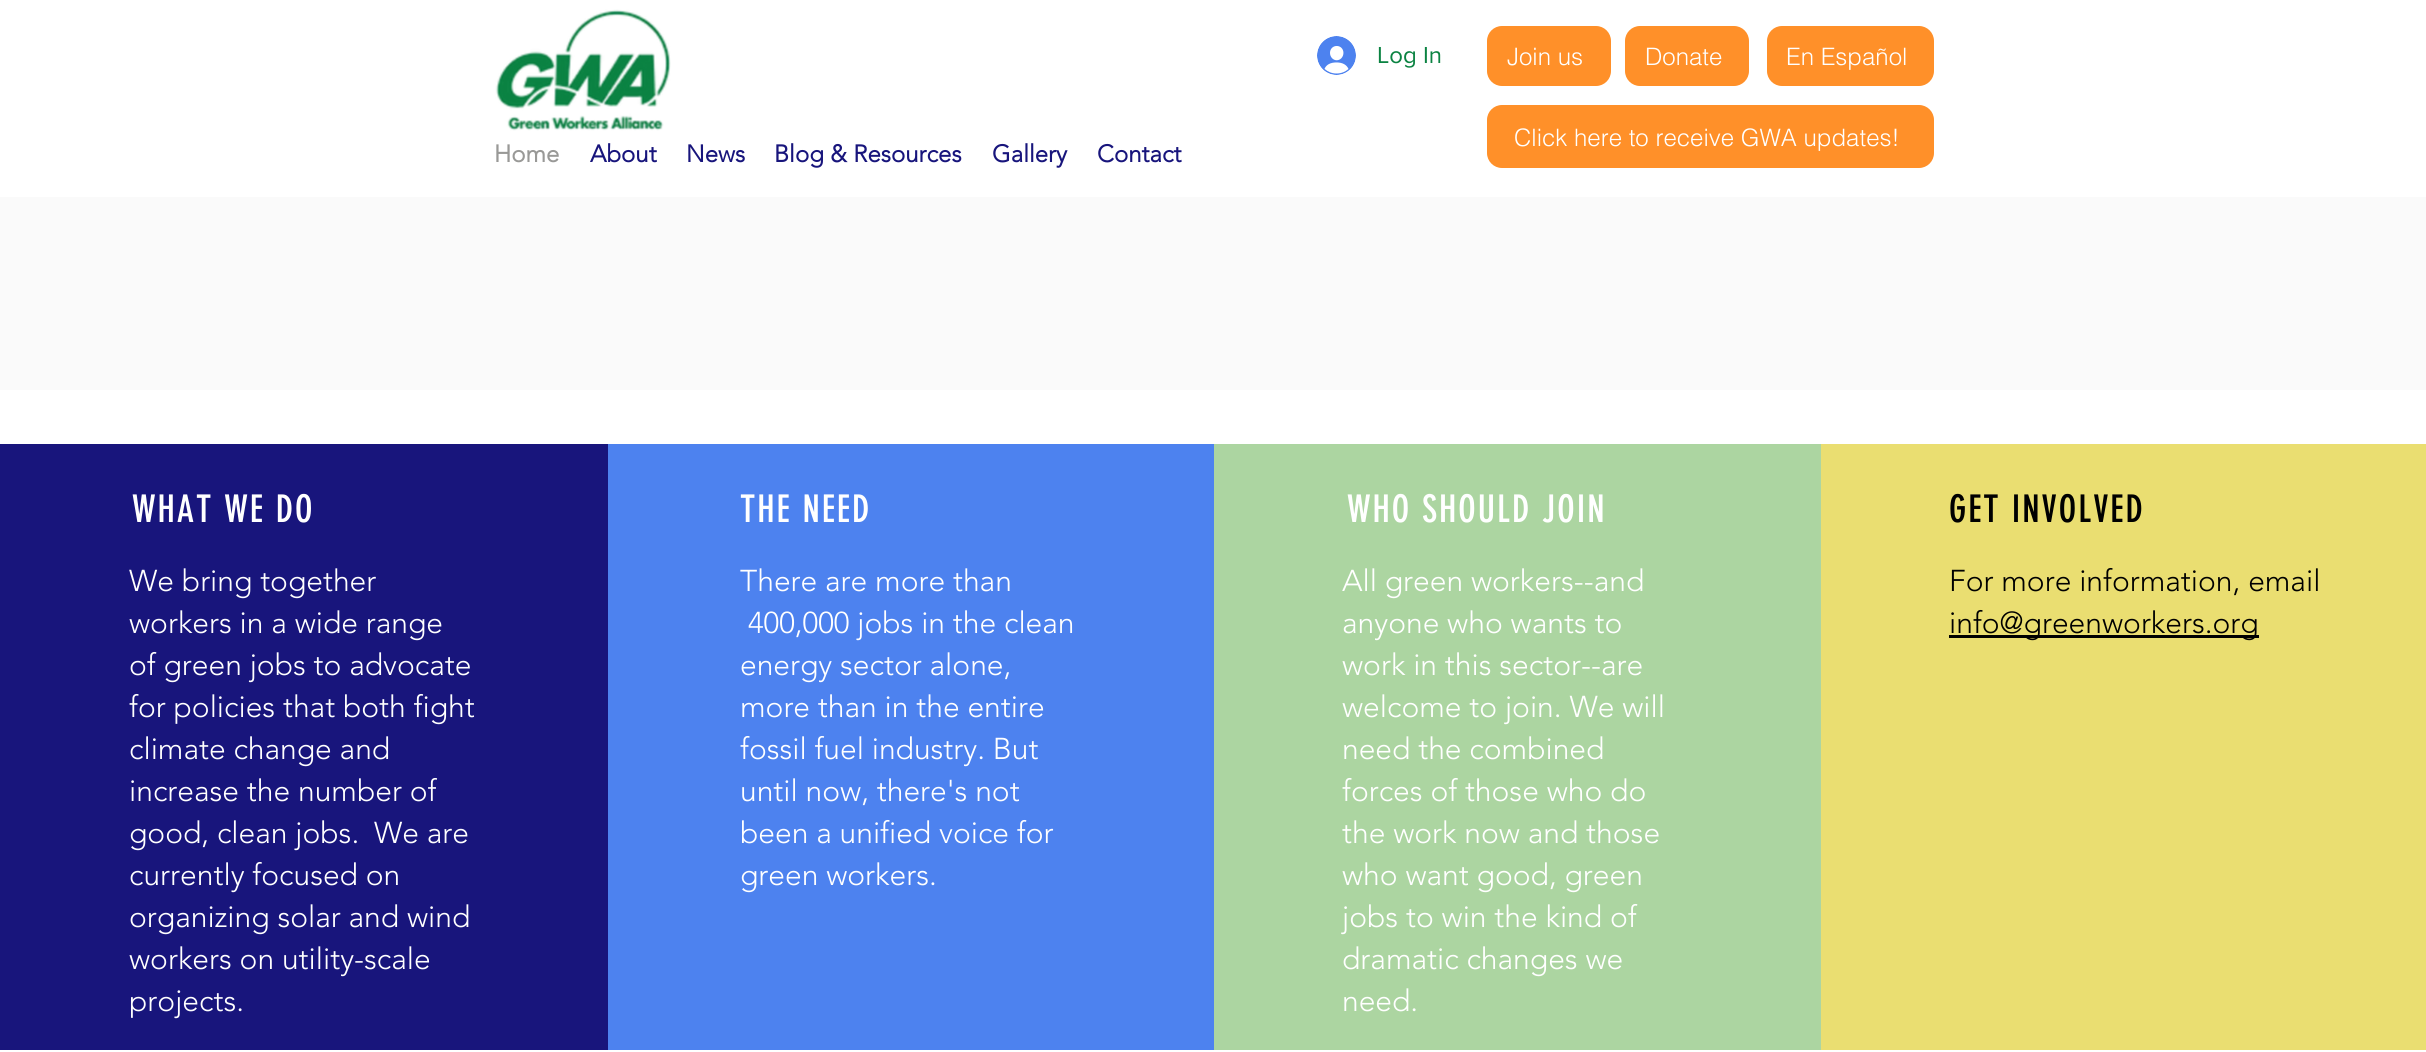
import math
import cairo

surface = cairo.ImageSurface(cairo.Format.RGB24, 2426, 1052)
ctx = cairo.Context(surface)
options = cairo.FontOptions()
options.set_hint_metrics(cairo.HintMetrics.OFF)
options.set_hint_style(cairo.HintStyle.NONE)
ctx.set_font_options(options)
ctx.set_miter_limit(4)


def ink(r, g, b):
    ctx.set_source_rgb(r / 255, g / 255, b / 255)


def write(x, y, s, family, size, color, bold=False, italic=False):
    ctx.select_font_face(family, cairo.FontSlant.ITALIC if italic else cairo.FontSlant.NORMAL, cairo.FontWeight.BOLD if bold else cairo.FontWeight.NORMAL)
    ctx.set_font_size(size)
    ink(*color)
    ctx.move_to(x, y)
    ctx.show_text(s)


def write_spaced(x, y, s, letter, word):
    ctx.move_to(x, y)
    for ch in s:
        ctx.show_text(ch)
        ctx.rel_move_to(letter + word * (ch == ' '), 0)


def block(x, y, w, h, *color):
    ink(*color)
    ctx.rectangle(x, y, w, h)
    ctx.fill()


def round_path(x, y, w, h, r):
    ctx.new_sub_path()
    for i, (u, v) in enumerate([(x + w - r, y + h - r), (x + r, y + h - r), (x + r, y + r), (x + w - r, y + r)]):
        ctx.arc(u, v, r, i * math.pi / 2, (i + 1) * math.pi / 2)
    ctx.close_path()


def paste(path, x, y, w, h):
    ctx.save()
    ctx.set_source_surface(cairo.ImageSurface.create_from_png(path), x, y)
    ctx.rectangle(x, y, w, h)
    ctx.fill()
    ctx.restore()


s1 = dict(family="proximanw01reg", size=24, color=(11, 131, 66))
s2 = dict(family="helvetica Light", size=24, color=(255, 255, 255))
s3 = dict(family="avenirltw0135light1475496", size=24, color=(153, 153, 151), bold=True)
s4 = dict(family="avenirltw0135light1475496", size=24, color=(24, 21, 124), bold=True)
s5 = dict(family="avenirltw0135light1475496 Light", size=30, color=(255, 255, 255))
s6 = dict(family="avenirltw0135light1475496 Light", size=30, color=(0, 0, 0))

ink(255, 255, 255)
ctx.paint()
paste("pic1.png", 495, 9, 176, 122)
paste("pic2.png", 1317, 36, 39, 39)
write(1377, 63, "Log In", **s1)
ink(255, 144, 41)
round_path(1487, 26, 124, 60, 15)
ctx.fill()
write(1507, 65, "Join us", **s2)
ink(255, 144, 41)
round_path(1625, 26, 124, 60, 15)
ctx.fill()
write(1645, 65, "Donate", **s2)
ink(255, 144, 41)
round_path(1767, 26, 167, 60, 15)
ctx.fill()
write(1786, 65, "En Español", **s2)
ink(255, 144, 41)
round_path(1487, 105, 447, 63, 15)
ctx.fill()
write(1514, 146, "Click here to receive GWA updates!", **s2)
write(494, 162, "Home", **s3)
write(590, 162, "About", **s4)
write(686, 162, "News", **s4)
write(774, 162, "Blog & Resources", **s4)
write(992, 162, "Gallery", **s4)
write(1097, 162, "Contact", **s4)
block(0, 197, 2426, 193, 250, 250, 250)
block(0, 444, 608, 606, 24, 21, 124)
ctx.select_font_face("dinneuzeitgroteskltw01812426")
ctx.set_font_size(37.5)
ink(255, 255, 255)
write_spaced(132, 522, "WHAT WE DO", 1.9, 0)
write(129, 591, "We bring together", **s5)
write(129, 633, "workers in a wide range", **s5)
write(129, 675, "of green jobs to advocate", **s5)
write(129, 717, "for policies that both fight", **s5)
write(129, 759, "climate change and", **s5)
write(129, 801, "increase the number of", **s5)
write(129, 843, "good, clean jobs.", **s5)
write(374, 843, "We are", **s5)
write(129, 885, "currently focused on", **s5)
write(129, 927, "organizing solar and wind", **s5)
write(129, 969, "workers on utility-scale", **s5)
write(129, 1011, "projects.", **s5)
block(608, 444, 606, 606, 77, 130, 239)
ctx.select_font_face("dinneuzeitgroteskltw01812426")
ctx.set_font_size(37.5)
ink(255, 255, 255)
write_spaced(740, 522, "THE NEED", 1.9, 0)
write(740, 591, "There are more than", **s5)
write(748, 633, "400,000 jobs in the clean", **s5)
write(740, 675, "energy sector alone,", **s5)
write(740, 717, "more than in the entire", **s5)
write(740, 759, "fossil fuel industry. But", **s5)
write(740, 801, "until now, there's not", **s5)
write(740, 843, "been a unified voice for", **s5)
write(740, 885, "green workers.", **s5)
block(1214, 444, 607, 606, 172, 213, 161)
ctx.select_font_face("dinneuzeitgroteskltw01812426")
ctx.set_font_size(37.5)
ink(255, 255, 255)
write_spaced(1347, 522, "WHO SHOULD JOIN", 1.9, 0)
write(1342, 591, "All green workers--and", **s5)
write(1342, 633, "anyone who wants to", **s5)
write(1342, 675, "work in this sector--are", **s5)
write(1342, 717, "welcome to join. We will", **s5)
write(1342, 759, "need the combined", **s5)
write(1342, 801, "forces of those who do", **s5)
write(1342, 843, "the work now and those", **s5)
write(1342, 885, "who want good, green", **s5)
write(1342, 927, "jobs to win the kind of", **s5)
write(1342, 969, "dramatic changes we", **s5)
write(1342, 1011, "need.", **s5)
block(1821, 444, 605, 606, 234, 222, 113)
ctx.select_font_face("dinneuzeitgroteskltw01812426")
ctx.set_font_size(37.5)
ink(0, 0, 0)
write_spaced(1949, 522, "GET INVOLVED", 1.9, 0)
write(1949, 591, "For more information, email", **s6)
block(1949, 635, 310, 3, 0, 0, 0)
write(1949, 633, "info@greenworkers.org", **s6)
surface.write_to_png("screenshot.png")
